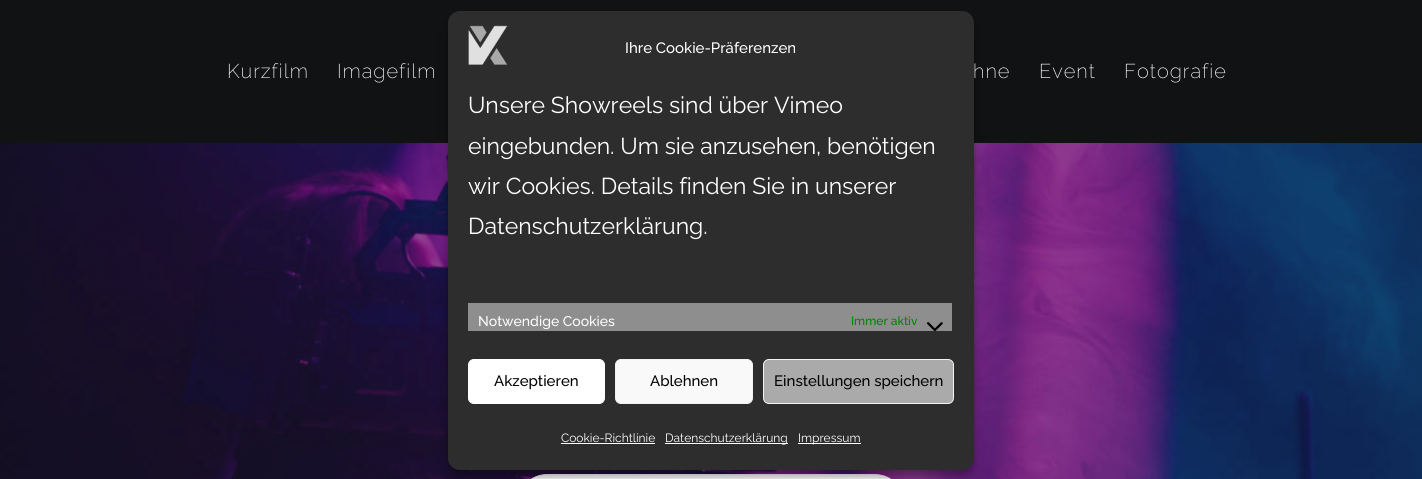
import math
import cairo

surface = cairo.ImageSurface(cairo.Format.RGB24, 1422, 479)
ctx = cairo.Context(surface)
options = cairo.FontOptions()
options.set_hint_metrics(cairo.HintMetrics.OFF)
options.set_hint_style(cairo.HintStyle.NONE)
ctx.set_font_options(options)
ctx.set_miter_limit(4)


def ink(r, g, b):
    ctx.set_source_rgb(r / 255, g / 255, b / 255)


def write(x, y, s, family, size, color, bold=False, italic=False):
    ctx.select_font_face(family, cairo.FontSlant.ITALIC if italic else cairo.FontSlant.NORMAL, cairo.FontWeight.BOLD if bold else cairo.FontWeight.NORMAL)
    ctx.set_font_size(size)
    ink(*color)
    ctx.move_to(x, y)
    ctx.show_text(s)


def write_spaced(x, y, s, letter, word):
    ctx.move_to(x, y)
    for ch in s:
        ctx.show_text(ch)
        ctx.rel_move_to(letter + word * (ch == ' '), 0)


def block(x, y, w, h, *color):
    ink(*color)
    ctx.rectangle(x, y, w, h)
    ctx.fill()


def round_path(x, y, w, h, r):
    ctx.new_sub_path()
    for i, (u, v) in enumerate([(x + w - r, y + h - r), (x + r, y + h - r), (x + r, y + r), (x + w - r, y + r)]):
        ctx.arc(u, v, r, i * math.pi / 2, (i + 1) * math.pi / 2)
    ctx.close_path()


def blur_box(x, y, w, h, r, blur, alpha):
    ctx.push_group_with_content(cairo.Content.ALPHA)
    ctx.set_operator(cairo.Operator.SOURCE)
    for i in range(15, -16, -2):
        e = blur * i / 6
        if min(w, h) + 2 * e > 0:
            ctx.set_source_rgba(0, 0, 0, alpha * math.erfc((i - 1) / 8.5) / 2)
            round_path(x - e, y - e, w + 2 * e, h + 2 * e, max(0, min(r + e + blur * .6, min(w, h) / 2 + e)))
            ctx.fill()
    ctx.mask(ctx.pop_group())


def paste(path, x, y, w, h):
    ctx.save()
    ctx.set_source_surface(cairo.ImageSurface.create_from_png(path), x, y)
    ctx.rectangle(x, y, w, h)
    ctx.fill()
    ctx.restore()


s1 = dict(family="Raleway Medium", size=15, color=(255, 255, 255))
s2 = dict(family="Raleway", size=23, color=(255, 255, 255))
s3 = dict(family="Raleway Medium", size=14, color=(255, 255, 255))
s4 = dict(family="Raleway Medium", size=12, color=(0, 128, 0))
s5 = dict(family="Raleway Medium", size=15, color=(0, 0, 0))
s6 = dict(family="Raleway", size=12, color=(255, 255, 255))

ink(255, 255, 255)
ctx.paint()
block(0, 0, 1422, 143, 16, 18, 19)
paste("pic3.png", 0, 143, 1422, 336)
ink(255, 255, 255)
round_path(517.5, 474.5, 387, 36, 30)
ctx.fill_preserve()
ctx.set_line_width(1)
ctx.stroke()
ink(0, 0, 0)
blur_box(448, 17, 526, 459, 12, 3, 0.23)
blur_box(448, 21, 526, 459, 12, 10, 0.19)
ink(45, 45, 45)
round_path(448, 11, 526, 459, 12)
ctx.fill()
paste("pic1.png", 468, 25, 40, 40)
write(625, 53, "Ihre Cookie-Präferenzen", **s1)
write(468, 113, "Unsere Showreels sind über Vimeo", **s2)
write(468, 154, "eingebunden. Um sie anzusehen, benötigen", **s2)
write(468, 194, "wir Cookies. Details finden Sie in unserer", **s2)
write(468, 234, "Datenschutzerklärung.", **s2)
block(468, 303, 484, 28, 142, 142, 142)
write(478, 326, "Notwendige Cookies", **s3)
write(851, 325, "Immer aktiv", **s4)
paste("pic2.png", 927, 322, 16, 9)
ink(255, 255, 255)
round_path(468.5, 359.5, 136, 44, 5.5)
ctx.fill_preserve()
ctx.stroke()
write(494, 386, "Akzeptieren", **s5)
ink(249, 249, 249)
round_path(615.5, 359.5, 137, 44, 5.5)
ctx.fill_preserve()
ink(242, 242, 242)
ctx.stroke()
write(650, 386, "Ablehnen", **s5)
ink(170, 170, 170)
round_path(763.5, 359.5, 190, 44, 5.5)
ctx.fill_preserve()
ink(242, 242, 242)
ctx.stroke()
write(774, 386, "Einstellungen speichern", **s5)
write(561, 442, "Cookie-Richtlinie", **s6)
block(561, 443, 94, 1, 255, 255, 255)
block(665, 443, 123, 1, 255, 255, 255)
write(665, 442, "Datenschutzerklärung", **s6)
block(798, 443, 63, 1, 255, 255, 255)
write(798, 442, "Impressum", **s6)
ctx.select_font_face("Raleway ExtraLight")
ctx.set_font_size(20)
write_spaced(227, 78, "Kurzfilm", 1, 0)
write_spaced(337, 78, "Imagefilm", 1, 0)
write_spaced(973, 78, "hne", 1, 0)
write_spaced(1039, 78, "Event", 1, 0)
write_spaced(1124, 78, "Fotografie", 1, 0)
surface.write_to_png("screenshot.png")
